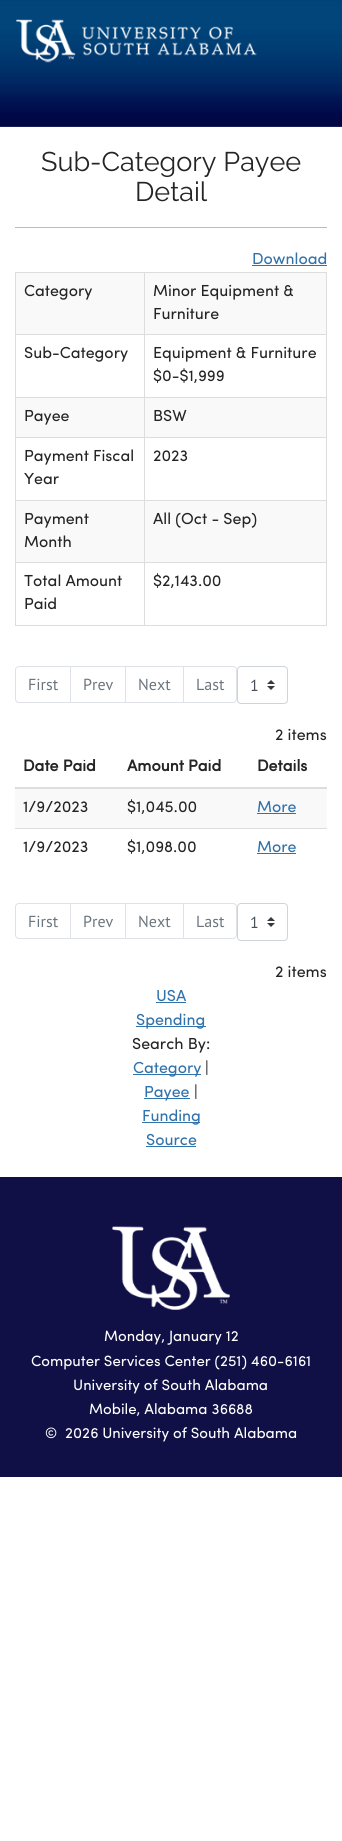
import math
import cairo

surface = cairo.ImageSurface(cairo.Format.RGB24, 342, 1841)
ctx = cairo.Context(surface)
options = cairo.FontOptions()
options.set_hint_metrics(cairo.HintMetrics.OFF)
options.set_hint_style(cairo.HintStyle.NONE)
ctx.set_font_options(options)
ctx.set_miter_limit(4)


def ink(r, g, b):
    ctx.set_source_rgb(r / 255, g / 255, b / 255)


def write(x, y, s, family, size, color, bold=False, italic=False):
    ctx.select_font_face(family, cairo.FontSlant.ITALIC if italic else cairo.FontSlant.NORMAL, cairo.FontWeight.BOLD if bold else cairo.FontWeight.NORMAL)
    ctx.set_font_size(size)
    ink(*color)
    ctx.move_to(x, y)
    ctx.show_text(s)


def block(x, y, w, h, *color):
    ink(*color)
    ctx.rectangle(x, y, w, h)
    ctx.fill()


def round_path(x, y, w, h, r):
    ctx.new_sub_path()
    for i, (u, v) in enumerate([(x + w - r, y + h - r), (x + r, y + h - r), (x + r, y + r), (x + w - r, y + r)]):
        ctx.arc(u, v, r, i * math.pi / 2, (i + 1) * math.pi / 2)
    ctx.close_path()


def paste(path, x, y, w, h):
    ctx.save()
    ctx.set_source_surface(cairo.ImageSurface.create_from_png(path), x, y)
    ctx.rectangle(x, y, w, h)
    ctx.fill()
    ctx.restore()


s1 = dict(family="Raleway Thin", size=27, color=(36, 36, 36))
s2 = dict(family="Sofia", size=16, color=(48, 114, 171))
s3 = dict(family="Sofia", size=16, color=(36, 36, 36))
s4 = dict(family="PT Sans", size=16, color=(108, 117, 125))
s5 = dict(family="PT Sans", size=16, color=(73, 80, 87))
s6 = dict(family="Sofia", size=16, color=(36, 36, 36), bold=True)
s7 = dict(family="Sofia", size=15, color=(255, 255, 255))

ink(255, 255, 255)
ctx.paint()
paste("pic1.png", 0, 0, 342, 127)
paste("pic2.png", 16, 19, 241, 44)
write(41, 171, "Sub-Category Payee", **s1)
write(135, 201, "Detail", **s1)
block(15, 227, 312, 1, 190, 186, 186)
write(252, 264, "Download", **s2)
block(252, 265, 75, 1, 48, 114, 171)
block(15, 272, 312, 1, 221, 221, 221)
block(326, 272, 1, 354, 221, 221, 221)
block(15, 625, 312, 1, 221, 221, 221)
block(15, 272, 1, 354, 221, 221, 221)
block(16, 273, 128, 61, 249, 249, 249)
write(24, 296, "Category", **s3)
block(145, 273, 181, 61, 249, 249, 249)
block(144, 334, 183, 1, 221, 221, 221)
block(144, 397, 183, 1, 221, 221, 221)
block(144, 437, 183, 1, 221, 221, 221)
block(144, 500, 183, 1, 221, 221, 221)
block(144, 562, 183, 1, 221, 221, 221)
block(144, 562, 1, 64, 221, 221, 221)
block(15, 562, 130, 1, 221, 221, 221)
block(144, 500, 1, 63, 221, 221, 221)
block(15, 500, 130, 1, 221, 221, 221)
block(144, 437, 1, 64, 221, 221, 221)
block(15, 437, 130, 1, 221, 221, 221)
block(144, 397, 1, 41, 221, 221, 221)
block(15, 397, 130, 1, 221, 221, 221)
block(144, 334, 1, 64, 221, 221, 221)
block(15, 334, 130, 1, 221, 221, 221)
block(144, 272, 1, 63, 221, 221, 221)
write(153, 296, "Minor Equipment &", **s3)
write(153, 319, "Furniture", **s3)
write(24, 358, "Sub-Category", **s3)
write(153, 358, "Equipment & Furniture", **s3)
write(153, 381, "$0-$1,999", **s3)
block(16, 398, 128, 39, 249, 249, 249)
write(24, 421, "Payee", **s3)
block(145, 398, 181, 39, 249, 249, 249)
write(153, 421, "BSW", **s3)
write(24, 461, "Payment Fiscal", **s3)
write(24, 484, "Year", **s3)
write(153, 461, "2023", **s3)
block(16, 501, 128, 61, 249, 249, 249)
write(24, 524, "Payment", **s3)
write(24, 547, "Month", **s3)
block(145, 501, 181, 61, 249, 249, 249)
write(153, 524, "All (Oct - Sep)", **s3)
write(24, 586, "Total Amount", **s3)
write(24, 609, "Paid", **s3)
write(153, 586, "$2,143.00", **s3)
ctx.new_path()
ctx.move_to(19, 666.5)
ctx.line_to(70.5, 666.5)
ctx.line_to(70.5, 702.5)
ctx.line_to(19, 702.5)
ctx.curve_to(17, 702.5, 15.5, 701, 15.5, 699)
ctx.line_to(15.5, 670)
ctx.curve_to(15.5, 668, 17, 666.5, 19, 666.5)
ctx.close_path()
ink(222, 226, 230)
ctx.set_line_width(1)
ctx.stroke()
write(28, 690, "First", **s4)
ctx.rectangle(70.5, 666.5, 55, 36)
ink(222, 226, 230)
ctx.stroke()
write(83, 690, "Prev", **s4)
ctx.rectangle(125.5, 666.5, 58, 36)
ink(222, 226, 230)
ctx.stroke()
write(138, 690, "Next", **s4)
ink(255, 255, 255)
ctx.new_path()
ctx.move_to(183.5, 666.5)
ctx.line_to(233, 666.5)
ctx.curve_to(235, 666.5, 236.5, 668, 236.5, 670)
ctx.line_to(236.5, 699)
ctx.curve_to(236.5, 701, 235, 702.5, 233, 702.5)
ctx.line_to(183.5, 702.5)
ctx.close_path()
ctx.fill_preserve()
ink(222, 226, 230)
ctx.stroke()
write(196, 690, "Last", **s4)
paste("pic3.png", 267, 680, 8, 10)
round_path(237.5, 666.5, 50, 37, 3.5)
ink(206, 212, 218)
ctx.stroke()
write(250, 691, "1", **s5)
write(275, 740, "2 items", **s3)
write(23, 771, "Date Paid", **s6)
write(127, 771, "Amount Paid", **s6)
block(15, 787, 312, 2, 221, 221, 221)
write(257, 771, "Details", **s6)
block(15, 789, 312, 39, 249, 249, 249)
write(23, 812, "1/9/2023", **s3)
write(127, 812, "$1,045.00", **s3)
write(257, 812, "More", **s2)
block(257, 813, 39, 1, 48, 114, 171)
write(23, 852, "1/9/2023", **s3)
write(127, 852, "$1,098.00", **s3)
block(15, 828, 312, 1, 221, 221, 221)
write(257, 852, "More", **s2)
block(257, 853, 39, 1, 48, 114, 171)
ctx.new_path()
ctx.move_to(19, 903.5)
ctx.line_to(70.5, 903.5)
ctx.line_to(70.5, 938.5)
ctx.line_to(19, 938.5)
ctx.curve_to(17, 938.5, 15.5, 937, 15.5, 935)
ctx.line_to(15.5, 907)
ctx.curve_to(15.5, 905, 17, 903.5, 19, 903.5)
ctx.close_path()
ink(222, 226, 230)
ctx.stroke()
write(28, 927, "First", **s4)
ctx.rectangle(70.5, 903.5, 55, 35)
ink(222, 226, 230)
ctx.stroke()
write(83, 927, "Prev", **s4)
ctx.rectangle(125.5, 903.5, 58, 35)
ink(222, 226, 230)
ctx.stroke()
write(138, 927, "Next", **s4)
ink(255, 255, 255)
ctx.new_path()
ctx.move_to(183.5, 903.5)
ctx.line_to(233, 903.5)
ctx.curve_to(235, 903.5, 236.5, 905, 236.5, 907)
ctx.line_to(236.5, 935)
ctx.curve_to(236.5, 937, 235, 938.5, 233, 938.5)
ctx.line_to(183.5, 938.5)
ctx.close_path()
ctx.fill_preserve()
ink(222, 226, 230)
ctx.stroke()
write(196, 927, "Last", **s4)
paste("pic3.png", 267, 917, 8, 10)
round_path(237.5, 903.5, 50, 37, 3.5)
ink(206, 212, 218)
ctx.stroke()
write(250, 928, "1", **s5)
write(275, 977, "2 items", **s3)
write(156, 1001, "USA", **s2)
block(156, 1002, 30, 1, 48, 114, 171)
block(136, 1026, 70, 1, 48, 114, 171)
write(136, 1025, "Spending", **s2)
write(132, 1049, "Search By:", **s3)
block(133, 1074, 68, 1, 48, 114, 171)
write(133, 1073, "Category", **s2)
write(205, 1073, "|", **s3)
block(144, 1098, 46, 1, 48, 114, 171)
write(144, 1097, "Payee", **s2)
write(194, 1097, "|", **s3)
block(142, 1122, 58, 1, 48, 114, 171)
write(142, 1121, "Funding", **s2)
write(146, 1145, "Source", **s2)
block(146, 1146, 50, 1, 48, 114, 171)
block(0, 1177, 342, 300, 16, 16, 70)
paste("pic4.png", 112, 1226, 118, 84)
write(104, 1341, "Monday, January 12", **s7)
write(31, 1366, "Computer Services Center (251) 460-6161", **s7)
write(73, 1390, "University of South Alabama", **s7)
write(89, 1414, "Mobile, Alabama 36688", **s7)
write(45, 1438, "©", **s7)
write(65, 1438, "2026 University of South Alabama", **s7)
surface.write_to_png("screenshot.png")
